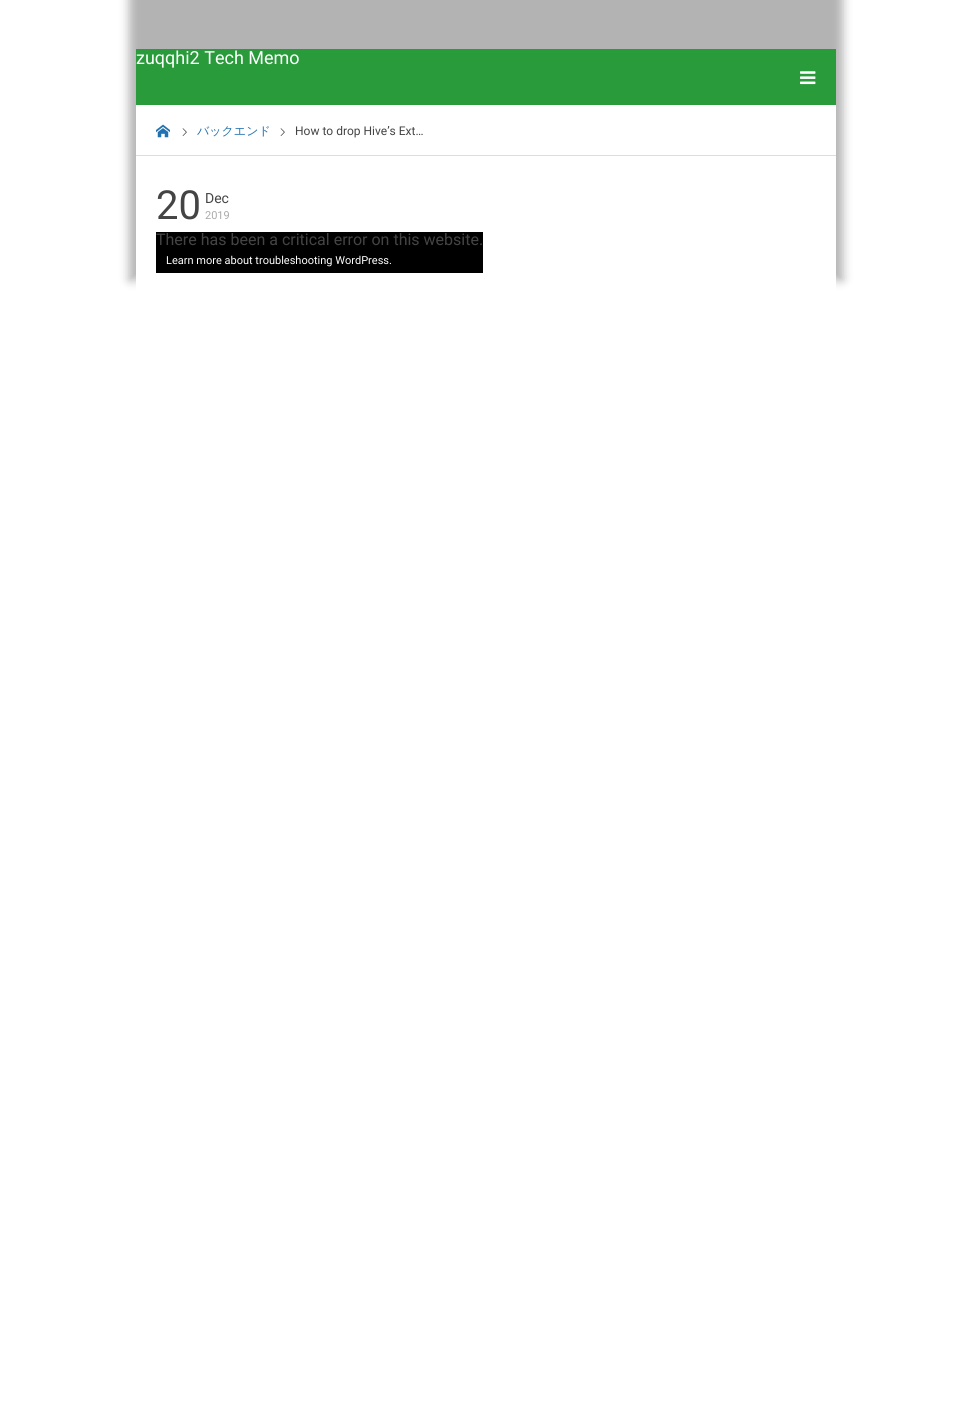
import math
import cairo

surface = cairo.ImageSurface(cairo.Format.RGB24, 971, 1410)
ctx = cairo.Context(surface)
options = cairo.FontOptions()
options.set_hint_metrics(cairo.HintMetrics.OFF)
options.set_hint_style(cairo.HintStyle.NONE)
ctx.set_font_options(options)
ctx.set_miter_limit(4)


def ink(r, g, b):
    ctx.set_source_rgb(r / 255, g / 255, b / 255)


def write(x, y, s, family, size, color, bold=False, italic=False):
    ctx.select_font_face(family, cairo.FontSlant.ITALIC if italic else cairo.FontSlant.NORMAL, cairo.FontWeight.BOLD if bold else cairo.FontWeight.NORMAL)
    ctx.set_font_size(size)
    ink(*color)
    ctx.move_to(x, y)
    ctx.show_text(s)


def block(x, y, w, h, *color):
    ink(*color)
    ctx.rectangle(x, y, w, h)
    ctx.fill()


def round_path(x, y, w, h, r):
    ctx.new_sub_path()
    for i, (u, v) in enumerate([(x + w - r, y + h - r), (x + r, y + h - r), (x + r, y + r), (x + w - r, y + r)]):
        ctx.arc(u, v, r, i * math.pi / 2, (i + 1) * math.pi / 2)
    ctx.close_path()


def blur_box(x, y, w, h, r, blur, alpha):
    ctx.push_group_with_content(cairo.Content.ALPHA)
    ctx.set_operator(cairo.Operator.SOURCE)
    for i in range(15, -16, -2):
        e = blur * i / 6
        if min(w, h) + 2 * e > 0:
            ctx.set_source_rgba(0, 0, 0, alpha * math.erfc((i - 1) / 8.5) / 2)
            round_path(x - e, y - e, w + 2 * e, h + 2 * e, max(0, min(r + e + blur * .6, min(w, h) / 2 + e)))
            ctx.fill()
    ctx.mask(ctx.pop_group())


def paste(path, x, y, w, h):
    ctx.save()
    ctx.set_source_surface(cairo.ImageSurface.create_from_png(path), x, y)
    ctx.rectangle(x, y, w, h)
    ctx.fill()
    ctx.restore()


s1 = dict(family="Roboto", size=18, color=(255, 255, 255))
s2 = dict(family="WenQuanYi Zen Hei Medium", size=12, color=(34, 113, 177))
s3 = dict(family="Roboto", size=12, color=(68, 68, 68))
s4 = dict(family="Roboto", size=40, color=(68, 68, 68))
s5 = dict(family="Roboto", size=14, color=(68, 68, 68))
s6 = dict(family="Roboto", size=11, color=(170, 170, 170))
s7 = dict(family="Roboto", size=16, color=(68, 68, 68))
s8 = dict(family="Roboto", size=11, color=(255, 255, 255))

ink(255, 255, 255)
ctx.paint()
ctx.save()
ctx.set_fill_rule(cairo.FillRule.EVEN_ODD)
ctx.new_path()
ctx.move_to(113, 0)
ctx.line_to(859, 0)
ctx.line_to(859, 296)
ctx.line_to(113, 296)
ctx.close_path()
ctx.move_to(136, 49)
ctx.line_to(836, 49)
ctx.line_to(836, 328)
ctx.line_to(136, 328)
ctx.close_path()
ctx.clip()
ink(0, 0, 0)
blur_box(129, -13, 714, 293, 0, 5, 0.3)
ctx.restore()
block(136, 49, 700, 56, 41, 155, 59)
write(136, 64, "zuqqhi2 Tech Memo", **s1)
paste("pic1.png", 800, 71, 16, 14)
block(136, 155, 700, 1, 221, 221, 221)
paste("pic2.png", 156, 124, 14, 14)
paste("pic3.png", 182, 128, 5, 8)
write(197, 135, "バックエンド", **s2)
paste("pic3.png", 280, 128, 5, 8)
write(295, 135, "How to drop Hive’s Ext…", **s3)
write(156, 219, "20", **s4)
write(205, 203, "Dec", **s5)
write(205, 219, "2019", **s6)
block(156, 232, 327, 41, 0, 0, 0)
write(156, 245, "There has been a critical error on this website.", **s7)
write(166, 264, "Learn more about troubleshooting WordPress.", **s8)
surface.write_to_png("screenshot.png")
